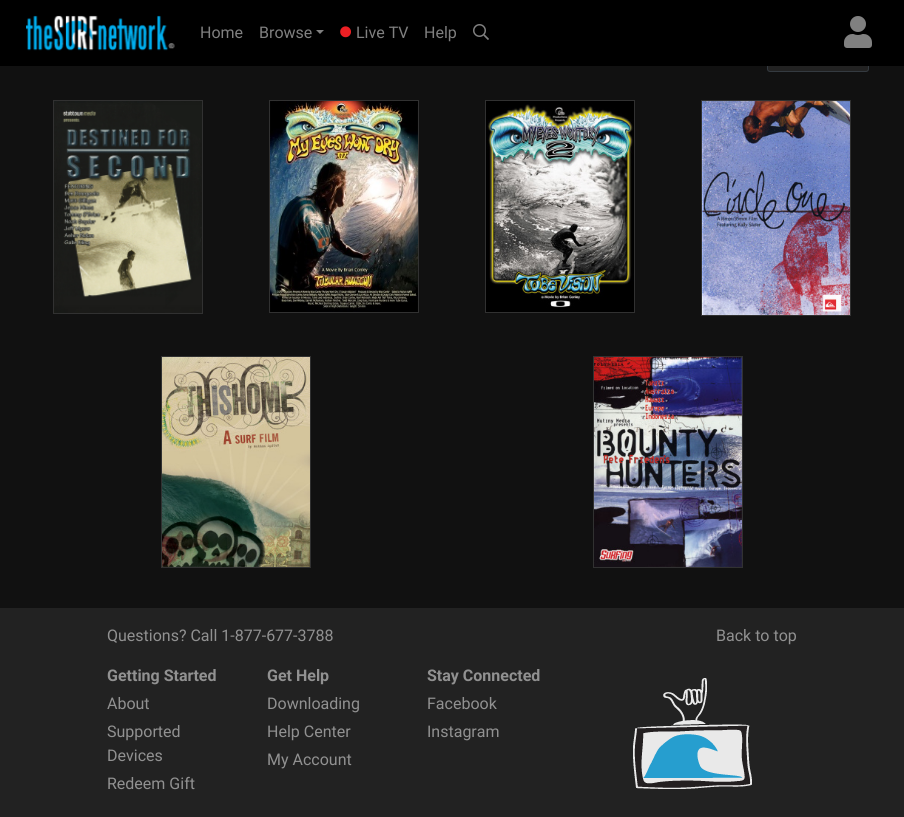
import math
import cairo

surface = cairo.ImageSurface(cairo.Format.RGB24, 904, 817)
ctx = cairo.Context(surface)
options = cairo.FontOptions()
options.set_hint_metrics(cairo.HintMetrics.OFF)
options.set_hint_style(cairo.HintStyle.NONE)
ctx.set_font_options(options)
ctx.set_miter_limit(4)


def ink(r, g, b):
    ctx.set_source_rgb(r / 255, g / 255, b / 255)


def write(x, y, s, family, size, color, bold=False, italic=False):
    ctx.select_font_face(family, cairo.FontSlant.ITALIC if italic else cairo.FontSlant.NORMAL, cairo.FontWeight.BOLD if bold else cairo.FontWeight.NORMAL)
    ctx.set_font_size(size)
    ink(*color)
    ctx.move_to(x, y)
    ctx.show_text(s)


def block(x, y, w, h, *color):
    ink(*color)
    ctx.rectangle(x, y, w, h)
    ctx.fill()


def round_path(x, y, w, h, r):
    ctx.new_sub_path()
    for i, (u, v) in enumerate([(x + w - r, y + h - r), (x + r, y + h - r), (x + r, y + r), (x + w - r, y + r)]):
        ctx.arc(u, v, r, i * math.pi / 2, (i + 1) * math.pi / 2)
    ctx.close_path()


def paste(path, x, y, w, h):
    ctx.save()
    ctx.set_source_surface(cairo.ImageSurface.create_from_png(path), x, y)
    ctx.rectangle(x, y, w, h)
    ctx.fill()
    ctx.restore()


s1 = dict(family="Roboto", size=16, color=(128, 128, 128))
s2 = dict(family="Roboto", size=16, color=(145, 145, 145))
s3 = dict(family="Roboto", size=16, color=(145, 145, 145), bold=True)

ink(17, 17, 17)
ctx.paint()
ink(34, 34, 34)
round_path(767.5, 41.5, 101, 30, 2.5)
ctx.fill_preserve()
ink(52, 58, 64)
ctx.set_line_width(1)
ctx.stroke()
block(0, 0, 904, 66, 0, 0, 0)
paste("pic1.png", 26, 15, 149, 36)
write(200, 38, "Home", **s1)
write(259, 38, "Browse", **s1)
ctx.new_path()
ctx.move_to(316, 30)
ctx.line_to(324, 30)
ctx.line_to(320, 34)
ctx.close_path()
ctx.fill()
paste("pic2.png", 340, 26, 11, 12)
write(356, 38, "Live TV", **s1)
write(424, 38, "Help", **s1)
paste("pic3.png", 473, 24, 16, 16)
paste("pic4.png", 844, 16, 28, 32)
ctx.rectangle(53.5, 100.5, 149, 213)
ink(49, 49, 49)
ctx.stroke()
paste("pic5.png", 54, 101, 148, 212)
ctx.rectangle(269.5, 100.5, 149, 212)
ctx.stroke()
paste("pic6.png", 270, 101, 148, 211)
ctx.rectangle(485.5, 100.5, 149, 212)
ctx.stroke()
paste("pic7.png", 486, 101, 148, 211)
ctx.rectangle(701.5, 100.5, 149, 215)
ctx.stroke()
paste("pic8.png", 702, 101, 148, 214)
ctx.rectangle(161.5, 356.5, 149, 211)
ctx.stroke()
paste("pic9.png", 162, 357, 148, 210)
ctx.rectangle(593.5, 356.5, 149, 211)
ctx.stroke()
paste("pic10.png", 594, 357, 148, 210)
block(0, 608, 904, 209, 34, 34, 34)
write(107, 641, "Questions? Call 1-877-677-3788", **s2)
write(716, 641, "Back to top", **s2)
write(107, 681, "Getting Started", **s3)
write(107, 709, "About", **s2)
write(107, 737, "Supported", **s2)
write(107, 761, "Devices", **s2)
write(107, 789, "Redeem Gift", **s2)
write(267, 681, "Get Help", **s3)
write(267, 709, "Downloading", **s2)
write(267, 737, "Help Center", **s2)
write(267, 765, "My Account", **s2)
write(427, 681, "Stay Connected", **s3)
write(427, 709, "Facebook", **s2)
write(427, 737, "Instagram", **s2)
paste("pic11.png", 633, 678, 119, 111)
surface.write_to_png("screenshot.png")
